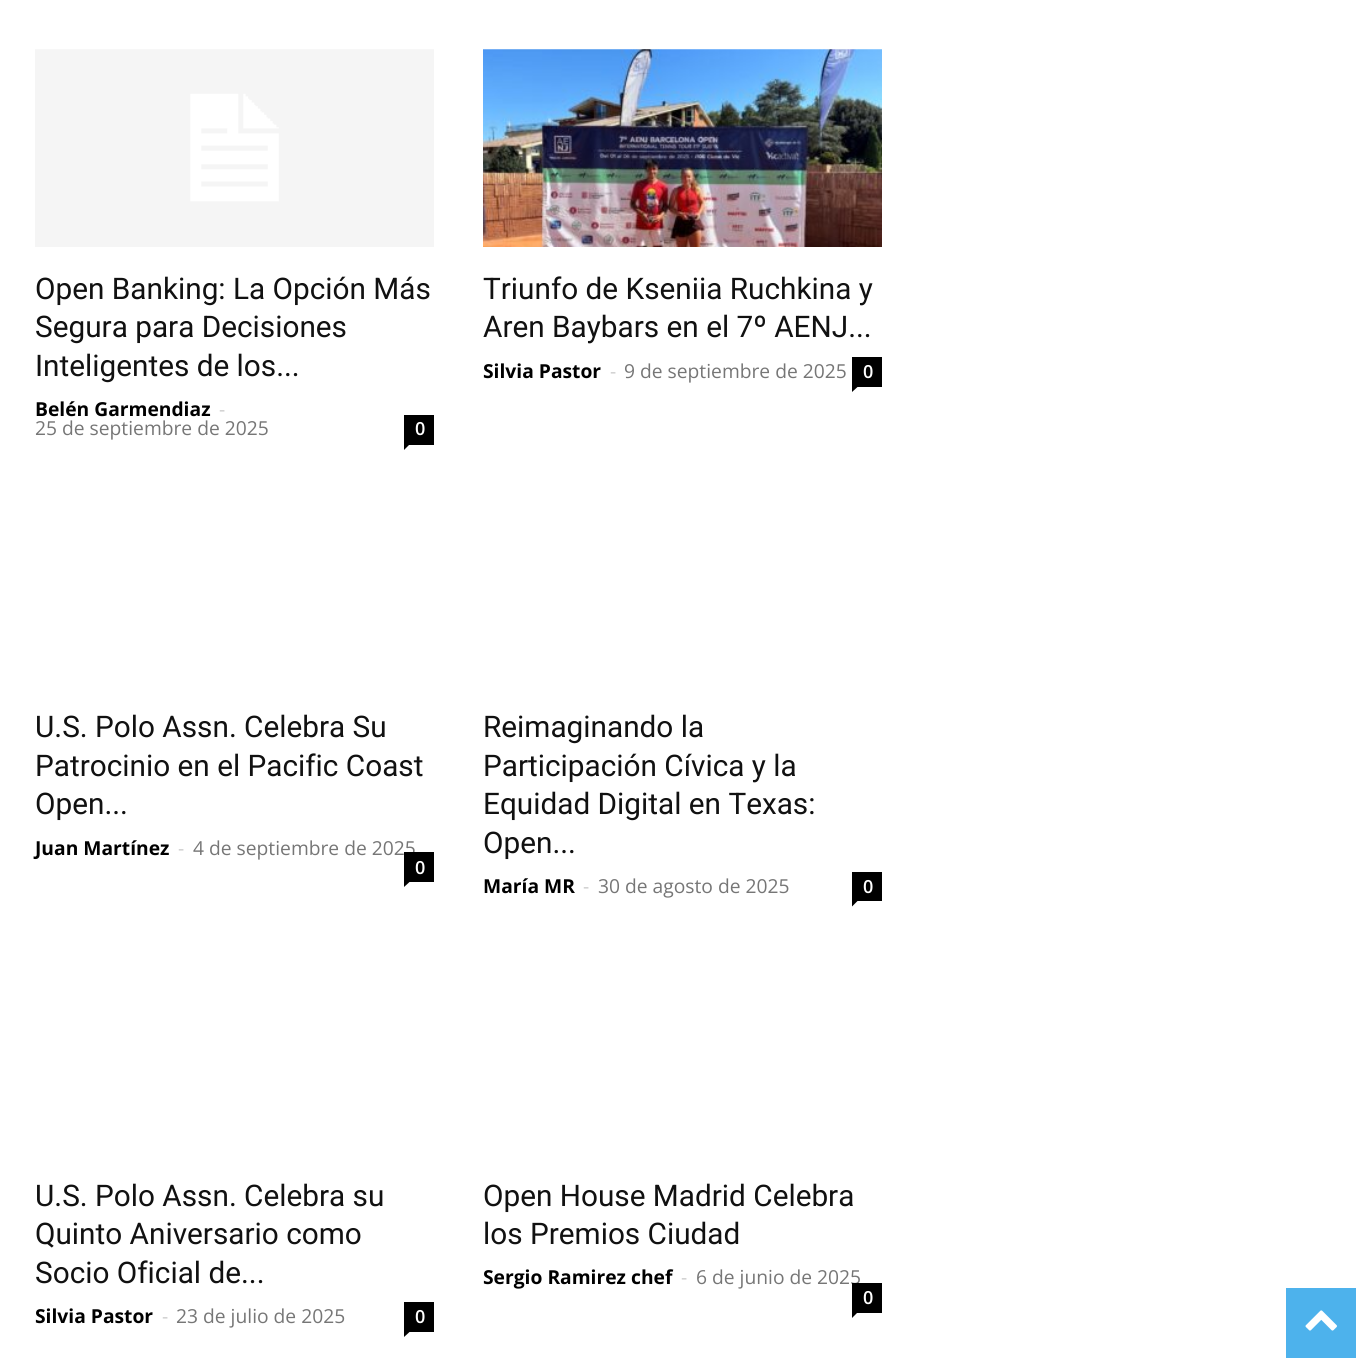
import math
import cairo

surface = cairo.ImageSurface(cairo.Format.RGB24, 1365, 1365)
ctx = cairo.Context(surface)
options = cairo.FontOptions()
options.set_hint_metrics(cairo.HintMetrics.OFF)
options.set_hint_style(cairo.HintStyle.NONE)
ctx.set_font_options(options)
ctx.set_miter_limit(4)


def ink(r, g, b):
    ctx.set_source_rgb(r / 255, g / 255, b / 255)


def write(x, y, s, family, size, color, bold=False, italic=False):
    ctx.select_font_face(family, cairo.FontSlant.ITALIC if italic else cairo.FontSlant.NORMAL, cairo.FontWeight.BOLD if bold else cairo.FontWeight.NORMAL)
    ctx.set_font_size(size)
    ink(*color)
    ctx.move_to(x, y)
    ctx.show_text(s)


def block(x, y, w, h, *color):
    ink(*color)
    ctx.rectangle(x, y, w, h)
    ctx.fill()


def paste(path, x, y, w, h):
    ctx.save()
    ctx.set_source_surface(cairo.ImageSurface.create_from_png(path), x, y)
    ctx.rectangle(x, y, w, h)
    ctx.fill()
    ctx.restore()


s1 = dict(family="Roboto", size=29.75, color=(17, 17, 17))
s2 = dict(family="Open Sans", size=19.25, color=(0, 0, 0), bold=True)
s3 = dict(family="Open Sans", size=19.25, color=(204, 204, 204))
s4 = dict(family="Open Sans", size=19.25, color=(118, 118, 118))
s5 = dict(family="Open Sans SemiBold", size=18, color=(255, 255, 255))

ink(255, 255, 255)
ctx.paint()
paste("pic1.png", 35, 49, 399, 198)
write(35, 299, "Open Banking: La Opción Más", **s1)
write(35, 337, "Segura para Decisiones", **s1)
write(35, 376, "Inteligentes de los...", **s1)
write(35, 416, "Belén Garmendiaz", **s2)
write(219, 416, "-", **s3)
write(35, 435, "25 de septiembre de 2025", **s4)
block(404, 415, 30, 30, 0, 0, 0)
write(415, 435, "0", **s5)
ink(0, 0, 0)
ctx.new_path()
ctx.move_to(404, 444.5)
ctx.line_to(409.5, 444.5)
ctx.line_to(404, 450)
ctx.close_path()
ctx.fill()
paste("pic2.png", 483, 49, 399, 198)
write(483, 299, "Triunfo de Kseniia Ruchkina y", **s1)
write(483, 337, "Aren Baybars en el 7º AENJ...", **s1)
write(483, 378, "Silvia Pastor", **s2)
write(610, 378, "-", **s3)
write(624, 378, "9 de septiembre de 2025", **s4)
block(852, 357, 30, 30, 0, 0, 0)
write(863, 378, "0", **s5)
ink(0, 0, 0)
ctx.new_path()
ctx.move_to(852, 387)
ctx.line_to(857.5, 387)
ctx.line_to(852, 392)
ctx.close_path()
ctx.fill()
write(35, 737, "U.S. Polo Assn. Celebra Su", **s1)
write(35, 776, "Patrocinio en el Pacific Coast", **s1)
write(35, 814, "Open...", **s1)
write(35, 855, "Juan Martínez", **s2)
write(178, 855, "-", **s3)
write(193, 855, "4 de septiembre de 2025", **s4)
block(404, 852, 30, 30, 0, 0, 0)
write(415, 874, "0", **s5)
ink(0, 0, 0)
ctx.new_path()
ctx.move_to(404, 882)
ctx.line_to(409.5, 882)
ctx.line_to(404, 887)
ctx.close_path()
ctx.fill()
write(483, 737, "Reimaginando la", **s1)
write(483, 776, "Participación Cívica y la", **s1)
write(483, 814, "Equidad Digital en Texas:", **s1)
write(483, 853, "Open...", **s1)
write(483, 893, "María MR", **s2)
write(583, 893, "-", **s3)
write(598, 893, "30 de agosto de 2025", **s4)
block(852, 872, 30, 29, 0, 0, 0)
write(863, 893, "0", **s5)
ink(0, 0, 0)
ctx.new_path()
ctx.move_to(852, 901)
ctx.line_to(857.5, 901)
ctx.line_to(852, 906.5)
ctx.close_path()
ctx.fill()
write(35, 1206, "U.S. Polo Assn. Celebra su", **s1)
write(35, 1244, "Quinto Aniversario como", **s1)
write(35, 1283, "Socio Oficial de...", **s1)
write(35, 1323, "Silvia Pastor", **s2)
write(162, 1323, "-", **s3)
write(176, 1323, "23 de julio de 2025", **s4)
block(404, 1302, 30, 30, 0, 0, 0)
write(415, 1323, "0", **s5)
ink(0, 0, 0)
ctx.new_path()
ctx.move_to(404, 1332)
ctx.line_to(409.5, 1332)
ctx.line_to(404, 1337)
ctx.close_path()
ctx.fill()
write(483, 1206, "Open House Madrid Celebra", **s1)
write(483, 1244, "los Premios Ciudad", **s1)
write(483, 1284, "Sergio Ramirez chef", **s2)
write(681, 1284, "-", **s3)
write(696, 1284, "6 de junio de 2025", **s4)
block(852, 1283, 30, 30, 0, 0, 0)
write(863, 1304, "0", **s5)
ink(0, 0, 0)
ctx.new_path()
ctx.move_to(852, 1312.5)
ctx.line_to(857.5, 1312.5)
ctx.line_to(852, 1318)
ctx.close_path()
ctx.fill()
block(1286, 1288, 70, 70, 77, 178, 236)
paste("pic3.png", 1305, 1310, 32, 21)
surface.write_to_png("screenshot.png")
